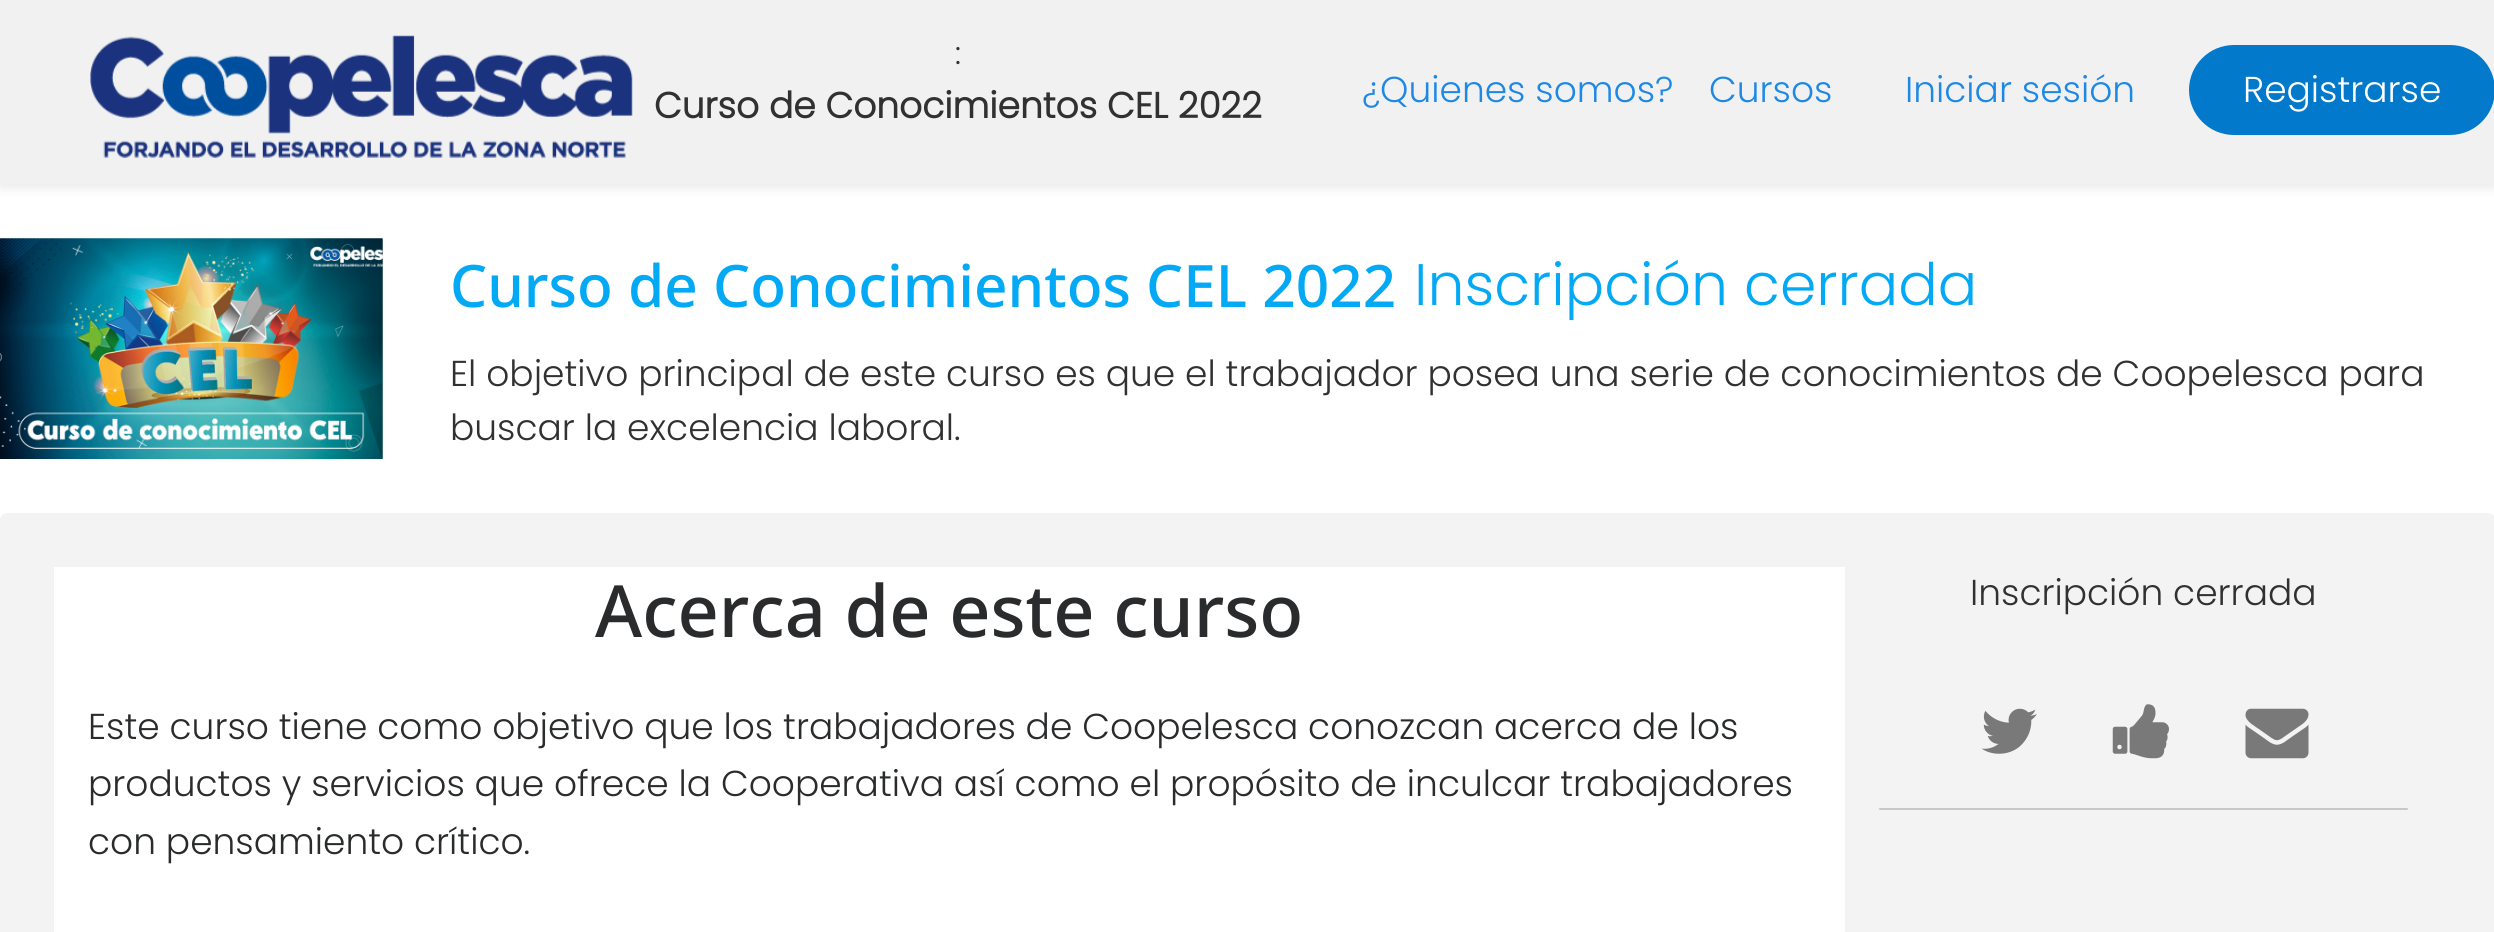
import math
import cairo

surface = cairo.ImageSurface(cairo.Format.RGB24, 2494, 932)
ctx = cairo.Context(surface)
options = cairo.FontOptions()
options.set_hint_metrics(cairo.HintMetrics.OFF)
options.set_hint_style(cairo.HintStyle.NONE)
ctx.set_font_options(options)
ctx.set_miter_limit(4)


def ink(r, g, b):
    ctx.set_source_rgb(r / 255, g / 255, b / 255)


def write(x, y, s, family, size, color, bold=False, italic=False):
    ctx.select_font_face(family, cairo.FontSlant.ITALIC if italic else cairo.FontSlant.NORMAL, cairo.FontWeight.BOLD if bold else cairo.FontWeight.NORMAL)
    ctx.set_font_size(size)
    ink(*color)
    ctx.move_to(x, y)
    ctx.show_text(s)


def block(x, y, w, h, *color):
    ink(*color)
    ctx.rectangle(x, y, w, h)
    ctx.fill()


def round_path(x, y, w, h, r):
    ctx.new_sub_path()
    for i, (u, v) in enumerate([(x + w - r, y + h - r), (x + r, y + h - r), (x + r, y + r), (x + w - r, y + r)]):
        ctx.arc(u, v, r, i * math.pi / 2, (i + 1) * math.pi / 2)
    ctx.close_path()


def blur_box(x, y, w, h, r, blur, alpha):
    ctx.push_group_with_content(cairo.Content.ALPHA)
    ctx.set_operator(cairo.Operator.SOURCE)
    for i in range(15, -16, -2):
        e = blur * i / 6
        if min(w, h) + 2 * e > 0:
            ctx.set_source_rgba(0, 0, 0, alpha * math.erfc((i - 1) / 8.5) / 2)
            round_path(x - e, y - e, w + 2 * e, h + 2 * e, max(0, min(r + e + blur * .6, min(w, h) / 2 + e)))
            ctx.fill()
    ctx.mask(ctx.pop_group())


def paste(path, x, y, w, h):
    ctx.save()
    ctx.set_source_surface(cairo.ImageSurface.create_from_png(path), x, y)
    ctx.rectangle(x, y, w, h)
    ctx.fill()
    ctx.restore()


s1 = dict(family="Poppins Light", size=32, color=(49, 49, 49))
s2 = dict(family="Poppins", size=36, color=(49, 49, 49), bold=True)
s3 = dict(family="Poppins Light", size=36, color=(30, 136, 229))
s4 = dict(family="Poppins Light", size=36, color=(255, 255, 255))
s5 = dict(family="Noto Sans Medium", size=58.5, color=(3, 169, 244))
s6 = dict(family="Poppins Light", size=58.5, color=(3, 169, 244))
s7 = dict(family="Poppins Light", size=36, color=(49, 49, 49))
s8 = dict(family="Noto Sans Medium", size=72, color=(41, 43, 44))
s9 = dict(family="Poppins Light", size=36, color=(41, 43, 44))

ink(255, 255, 255)
ctx.paint()
ink(0, 0, 0)
blur_box(0, 2, 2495, 185, 0, 5.5, 0.1)
block(0, 0, 2494, 185, 241, 241, 241)
paste("pic1.png", 90, 35, 543, 123)
write(955, 64, ":", **s1)
write(654, 118, "Curso de Conocimientos CEL 2022", **s2)
write(1362, 102, "¿Quienes somos?", **s3)
write(1709, 102, "Cursos", **s3)
write(1905, 102, "Iniciar sesión", **s3)
ink(2, 121, 203)
round_path(2189, 45, 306, 90, 45)
ctx.fill()
write(2243, 102, "Registrarse", **s4)
paste("pic2.png", 0, 238, 383, 221)
paste("pic3.png", 0, 238, 383, 221)
write(450, 307, "Curso de Conocimientos CEL 2022", **s5)
write(1414, 305, "Inscripción cerrada", **s6)
write(450, 386, "El objetivo principal de este curso es que el trabajador posea una serie de conocimientos de Coopelesca para", **s7)
write(450, 440, "buscar la excelencia laboral.", **s7)
ink(243, 243, 243)
round_path(0, 513, 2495, 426, 7)
ctx.fill()
block(54, 567, 1791, 365, 255, 255, 255)
write(595, 637, "Acerca de este curso", **s8)
write(88, 739, "Este curso tiene como objetivo que los trabajadores de Coopelesca conozcan acerca de los", **s9)
write(88, 796, "productos y servicios que ofrece la Cooperativa así como el propósito de inculcar trabajadores", **s9)
write(88, 854, "con pensamiento crítico.", **s9)
write(1970, 605, "Inscripción cerrada", **s7)
paste("pic4.png", 1981, 708, 56, 46)
paste("pic5.png", 2112, 704, 57, 55)
paste("pic6.png", 2245, 708, 64, 51)
ink(200, 200, 200)
round_path(1879, 808, 529, 2, 1)
ctx.fill()
surface.write_to_png("screenshot.png")
